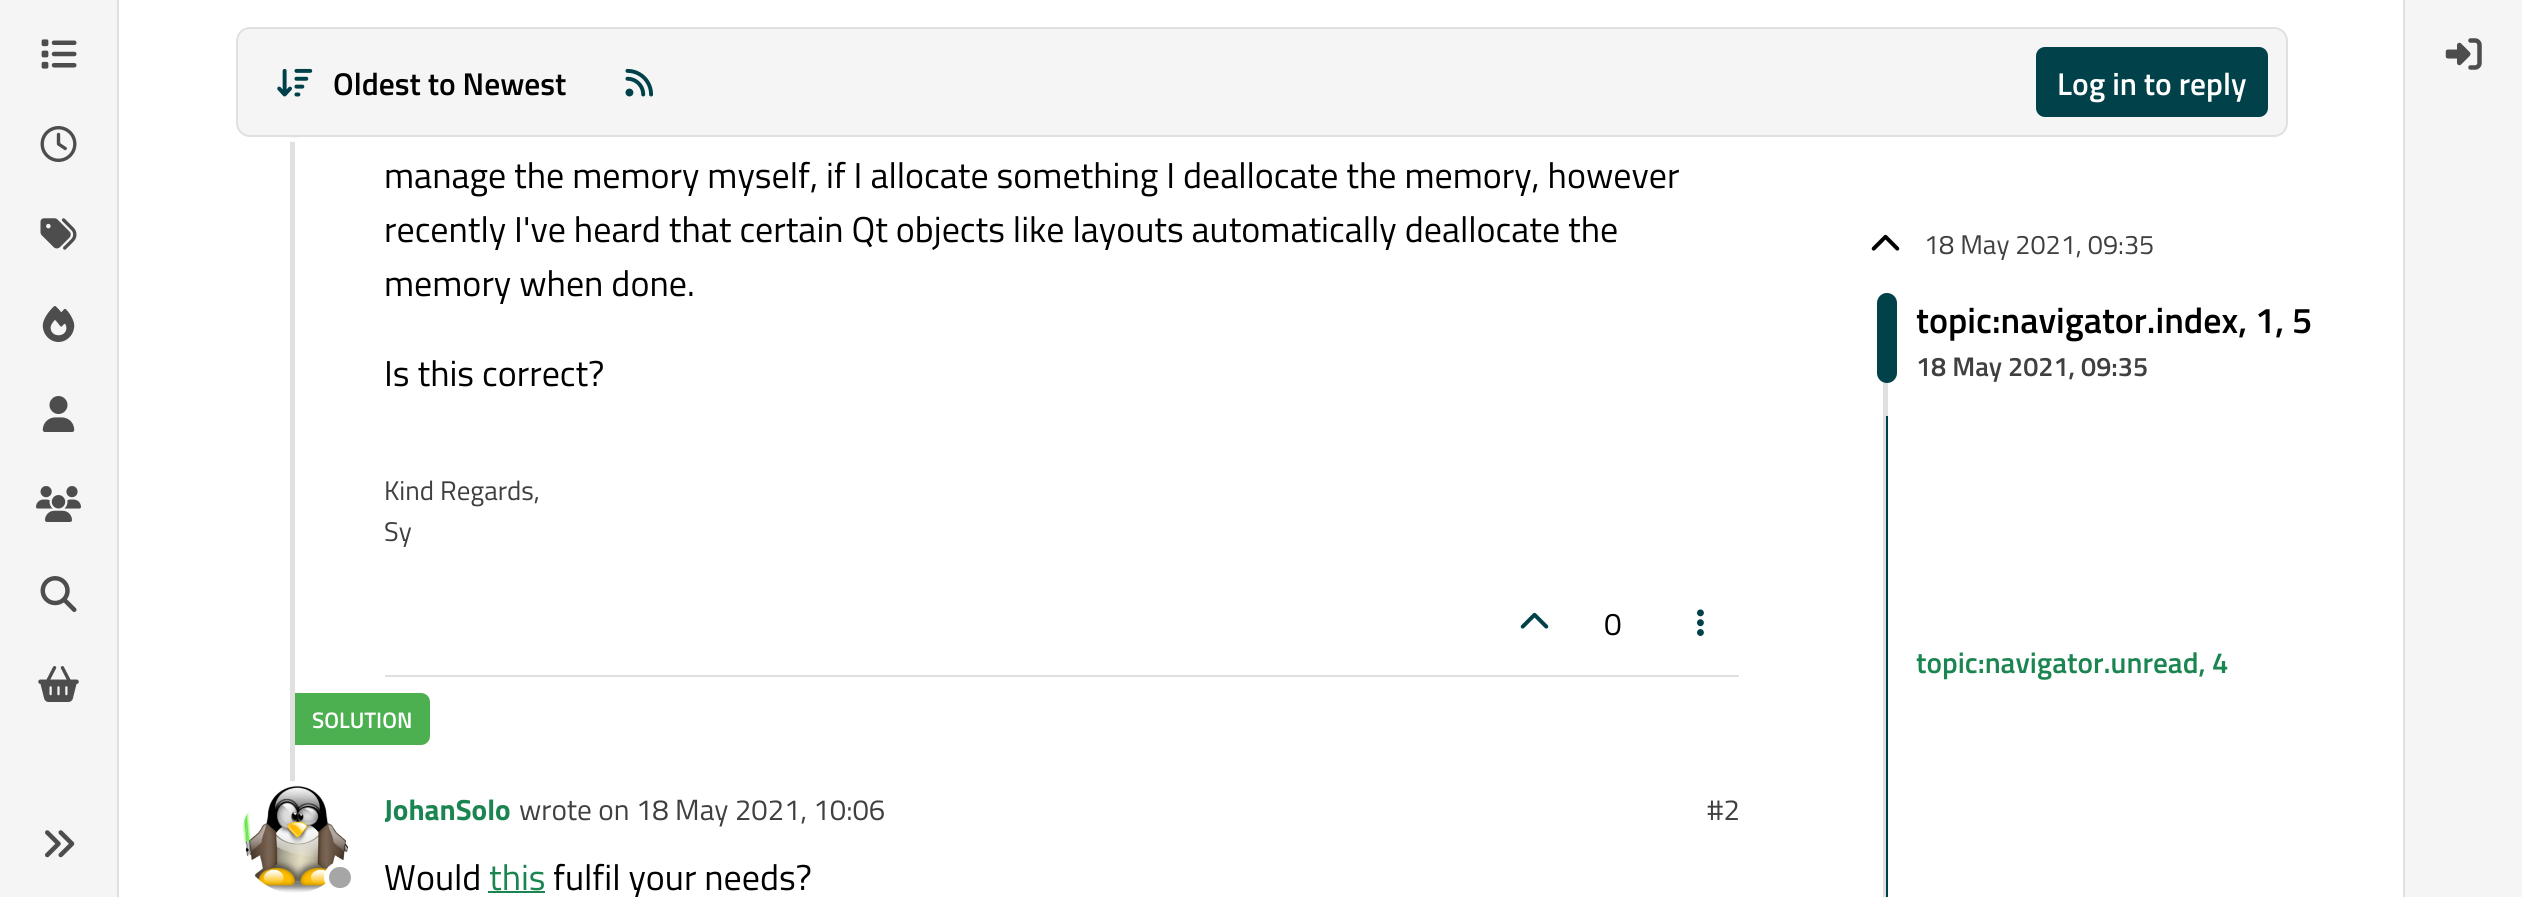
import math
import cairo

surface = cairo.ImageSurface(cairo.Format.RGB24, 2522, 897)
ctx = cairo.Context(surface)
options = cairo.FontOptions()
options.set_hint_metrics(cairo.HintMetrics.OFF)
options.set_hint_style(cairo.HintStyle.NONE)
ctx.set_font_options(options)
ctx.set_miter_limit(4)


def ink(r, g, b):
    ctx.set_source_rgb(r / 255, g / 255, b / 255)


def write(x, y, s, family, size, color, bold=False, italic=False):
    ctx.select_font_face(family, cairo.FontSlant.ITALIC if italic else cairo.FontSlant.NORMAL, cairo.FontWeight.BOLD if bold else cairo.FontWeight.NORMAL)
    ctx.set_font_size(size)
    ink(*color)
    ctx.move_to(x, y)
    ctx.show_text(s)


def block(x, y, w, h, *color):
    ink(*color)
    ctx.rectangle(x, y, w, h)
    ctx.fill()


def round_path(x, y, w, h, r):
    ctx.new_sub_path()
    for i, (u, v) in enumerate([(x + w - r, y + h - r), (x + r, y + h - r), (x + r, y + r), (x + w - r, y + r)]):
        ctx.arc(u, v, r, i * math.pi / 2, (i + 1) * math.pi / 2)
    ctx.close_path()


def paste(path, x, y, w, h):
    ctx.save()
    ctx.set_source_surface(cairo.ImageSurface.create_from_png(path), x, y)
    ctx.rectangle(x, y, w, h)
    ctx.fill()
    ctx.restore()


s1 = dict(family="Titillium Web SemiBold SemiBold", size=31.5, color=(0, 0, 0))
s2 = dict(family="Titillium Web SemiBold SemiBold", size=31.5, color=(255, 255, 255))
s3 = dict(family="Titillium Web", size=36, color=(0, 0, 0))
s4 = dict(family="Titillium Web", size=27, color=(64, 64, 64))
s5 = dict(family="Titillium Web", size=31.5, color=(0, 0, 0))
s6 = dict(family="Titillium Web SemiBold SemiBold", size=22.5, color=(255, 255, 255))
s7 = dict(family="Titillium Web", size=29.25, color=(26, 133, 80), bold=True)
s8 = dict(family="Titillium Web", size=29.25, color=(64, 64, 64))
s9 = dict(family="Titillium Web", size=36, color=(26, 133, 80))
s10 = dict(family="Titillium Web SemiBold SemiBold", size=36, color=(0, 0, 0))
s11 = dict(family="Titillium Web SemiBold SemiBold", size=27, color=(64, 64, 64))
s12 = dict(family="Titillium Web SemiBold SemiBold", size=29.25, color=(26, 133, 80))

ink(255, 255, 255)
ctx.paint()
block(0, 0, 117, 897, 245, 245, 245)
block(117, 0, 2, 897, 224, 224, 224)
paste("pic1.png", 41, 39, 36, 30)
paste("pic2.png", 40, 126, 37, 36)
paste("pic3.png", 40, 218, 37, 32)
paste("pic4.png", 42, 306, 33, 36)
paste("pic5.png", 42, 396, 33, 36)
paste("pic6.png", 36, 486, 45, 36)
paste("pic7.png", 40, 576, 37, 36)
paste("pic8.png", 38, 666, 41, 36)
paste("pic9.png", 45, 830, 30, 28)
block(290, 141, 5, 756, 224, 224, 224)
ctx.arc(294.5, 83.5, 56, 0, 2 * math.pi)
ink(255, 255, 255)
ctx.set_line_width(5)
ctx.stroke()
ink(245, 245, 245)
round_path(237, 28, 2050, 108, 13)
ctx.fill_preserve()
ink(224, 224, 224)
ctx.set_line_width(2)
ctx.stroke()
paste("pic10.png", 277, 68, 36, 29)
write(333, 95, "Oldest to Newest", **s1)
paste("pic11.png", 625, 68, 29, 29)
ink(0, 65, 74)
round_path(2037, 48, 230, 68, 8)
ctx.fill_preserve()
ctx.stroke()
write(2057, 95, "Log in to reply", **s2)
paste("pic12.png", 291, 137, 7, 1)
write(384, 188, "manage the memory myself, if I allocate something I deallocate the memory, however", **s3)
write(384, 242, "recently I've heard that certain Qt objects like layouts automatically deallocate the", **s3)
write(384, 296, "memory when done.", **s3)
write(384, 386, "Is this correct?", **s3)
block(385, 675, 1354, 2, 224, 224, 224)
write(384, 500, "Kind Regards,", **s4)
write(384, 541, "Sy", **s4)
paste("pic13.png", 1520, 612, 29, 17)
write(1604, 635, "0", **s5)
paste("pic14.png", 1697, 609, 7, 27)
ink(76, 175, 80)
ctx.new_path()
ctx.move_to(295, 693)
ctx.line_to(421, 693)
ctx.curve_to(426, 693, 430, 697, 430, 702)
ctx.line_to(430, 736)
ctx.curve_to(430, 741, 426, 745, 421, 745)
ctx.line_to(295, 745)
ctx.close_path()
ctx.fill()
write(312, 728, "SOLUTION", **s6)
ctx.new_path()
ctx.arc(294.5, 839.5, 56, 0, 2 * math.pi)
ctx.fill_preserve()
ctx.set_line_width(5)
ctx.stroke()
paste("pic15.png", 242, 786, 106, 107)
ink(166, 166, 166)
round_path(326.5, 864.5, 27, 26, 13)
ctx.fill_preserve()
ink(255, 255, 255)
ctx.stroke()
ctx.save()
ctx.rectangle(385, 785, 126, 45)
ctx.clip()
write(384, 820, "JohanSolo", **s7)
ctx.restore()
write(519, 820, "wrote on 18 May 2021, 10:06", **s8)
write(1707, 820, "#2", **s8)
write(384, 890, "Would", **s3)
write(489, 890, "this", **s9)
block(488, 891, 57, 2, 26, 133, 80)
write(553, 890, "fulfil your needs?", **s3)
paste("pic16.png", 1871, 234, 29, 17)
write(1924, 254, "18 May 2021, 09:35", **s4)
block(1883, 293, 5, 604, 224, 224, 224)
ink(0, 65, 74)
round_path(1877, 293, 20, 90, 10)
ctx.fill()
write(1916, 333, "topic:navigator.index, 1, 5", **s10)
write(1916, 376, "18 May 2021, 09:35", **s11)
block(1886, 416, 2, 481, 0, 65, 74)
write(1916, 673, "topic:navigator.unread, 4", **s12)
block(2405, 0, 117, 897, 245, 245, 245)
block(2403, 0, 2, 897, 224, 224, 224)
paste("pic17.png", 2445, 38, 37, 32)
surface.write_to_png("screenshot.png")
